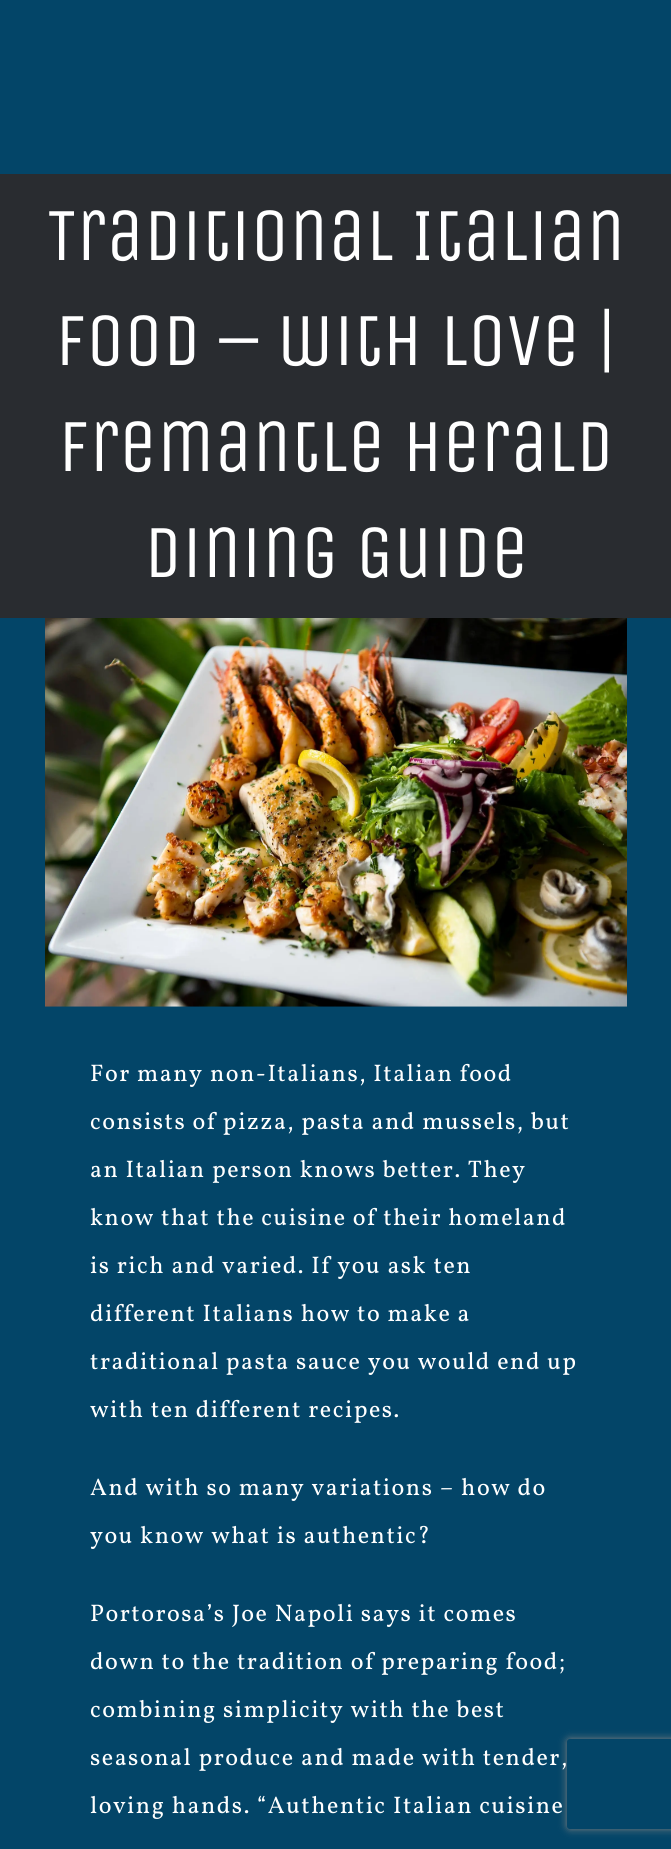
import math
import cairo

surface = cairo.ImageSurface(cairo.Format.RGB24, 671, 1849)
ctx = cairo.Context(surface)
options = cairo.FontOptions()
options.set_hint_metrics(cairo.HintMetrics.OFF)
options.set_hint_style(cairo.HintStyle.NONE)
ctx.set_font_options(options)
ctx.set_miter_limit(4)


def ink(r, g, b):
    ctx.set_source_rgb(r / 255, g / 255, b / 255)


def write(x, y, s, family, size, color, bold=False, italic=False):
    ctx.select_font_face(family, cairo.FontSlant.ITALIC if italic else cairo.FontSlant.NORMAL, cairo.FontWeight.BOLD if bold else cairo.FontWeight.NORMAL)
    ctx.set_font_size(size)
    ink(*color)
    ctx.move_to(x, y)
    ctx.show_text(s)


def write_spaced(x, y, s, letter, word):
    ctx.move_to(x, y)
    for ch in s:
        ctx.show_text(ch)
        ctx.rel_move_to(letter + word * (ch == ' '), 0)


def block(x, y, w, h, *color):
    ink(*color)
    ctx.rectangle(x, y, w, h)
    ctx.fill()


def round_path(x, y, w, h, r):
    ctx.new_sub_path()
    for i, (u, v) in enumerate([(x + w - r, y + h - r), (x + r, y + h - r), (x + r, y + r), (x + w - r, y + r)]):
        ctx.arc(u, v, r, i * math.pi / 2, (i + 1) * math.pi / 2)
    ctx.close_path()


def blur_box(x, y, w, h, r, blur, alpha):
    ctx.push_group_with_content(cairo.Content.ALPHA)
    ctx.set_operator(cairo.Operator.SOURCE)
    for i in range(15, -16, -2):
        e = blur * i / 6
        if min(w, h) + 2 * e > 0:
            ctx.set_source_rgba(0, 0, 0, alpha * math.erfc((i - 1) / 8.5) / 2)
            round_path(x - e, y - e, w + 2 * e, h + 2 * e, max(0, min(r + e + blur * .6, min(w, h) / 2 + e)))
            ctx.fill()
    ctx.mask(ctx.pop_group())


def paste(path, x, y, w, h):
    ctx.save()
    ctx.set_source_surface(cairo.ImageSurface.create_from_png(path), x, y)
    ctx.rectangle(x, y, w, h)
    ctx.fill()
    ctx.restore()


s1 = dict(family="Unica One", size=75, color=(255, 255, 255))

ink(41, 44, 48)
ctx.paint()
block(0, 0, 671, 174, 3, 69, 104)
write(47, 260, "Traditional Italian", **s1)
write(55, 365, "food – with love |", **s1)
write(58, 471, "Fremantle Herald", **s1)
write(144, 577, "Dining Guide", **s1)
block(0, 618, 671, 1231, 3, 69, 104)
paste("pic1.png", 45, 618, 582, 389)
ctx.select_font_face("Vollkorn")
ctx.set_font_size(24)
ink(255, 255, 255)
write_spaced(90, 1081, "For many non-Italians, Italian food", 1.5, 0)
write_spaced(90, 1129, "consists of pizza, pasta and mussels, but", 1.5, 0)
write_spaced(90, 1177, "an Italian person knows better. They", 1.5, 0)
write_spaced(90, 1225, "know that the cuisine of their homeland", 1.5, 0)
write_spaced(90, 1273, "is rich and varied. If you ask ten", 1.5, 0)
write_spaced(90, 1321, "different Italians how to make a", 1.5, 0)
write_spaced(90, 1369, "traditional pasta sauce you would end up", 1.5, 0)
write_spaced(90, 1417, "with ten different recipes.", 1.5, 0)
write_spaced(90, 1495, "And with so many variations – how do", 1.5, 0)
write_spaced(90, 1543, "you know what is authentic?", 1.5, 0)
write_spaced(90, 1621, "Portorosa’s Joe Napoli says it comes", 1.5, 0)
write_spaced(90, 1669, "down to the tradition of preparing food;", 1.5, 0)
write_spaced(90, 1717, "combining simplicity with the best", 1.5, 0)
ctx.save()
ctx.set_fill_rule(cairo.FillRule.EVEN_ODD)
ctx.new_path()
ctx.move_to(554, 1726)
ctx.line_to(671, 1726)
ctx.line_to(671, 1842)
ctx.line_to(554, 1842)
ctx.close_path()
ctx.move_to(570, 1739)
ctx.line_to(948, 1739)
ctx.curve_to(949.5, 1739, 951, 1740.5, 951, 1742)
ctx.line_to(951, 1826)
ctx.curve_to(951, 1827.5, 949.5, 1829, 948, 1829)
ctx.line_to(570, 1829)
ctx.curve_to(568.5, 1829, 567, 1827.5, 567, 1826)
ctx.line_to(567, 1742)
ctx.curve_to(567, 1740.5, 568.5, 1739, 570, 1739)
ctx.close_path()
ctx.clip()
ink(128, 128, 128)
blur_box(567, 1739, 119, 90, 3, 4, 1)
ctx.restore()
write_spaced(90, 1765, "seasonal produce and made with tender,", 1.5, 0)
write_spaced(90, 1813, "loving hands. “Authentic Italian cuisine", 1.5, 0)
surface.write_to_png("screenshot.png")
